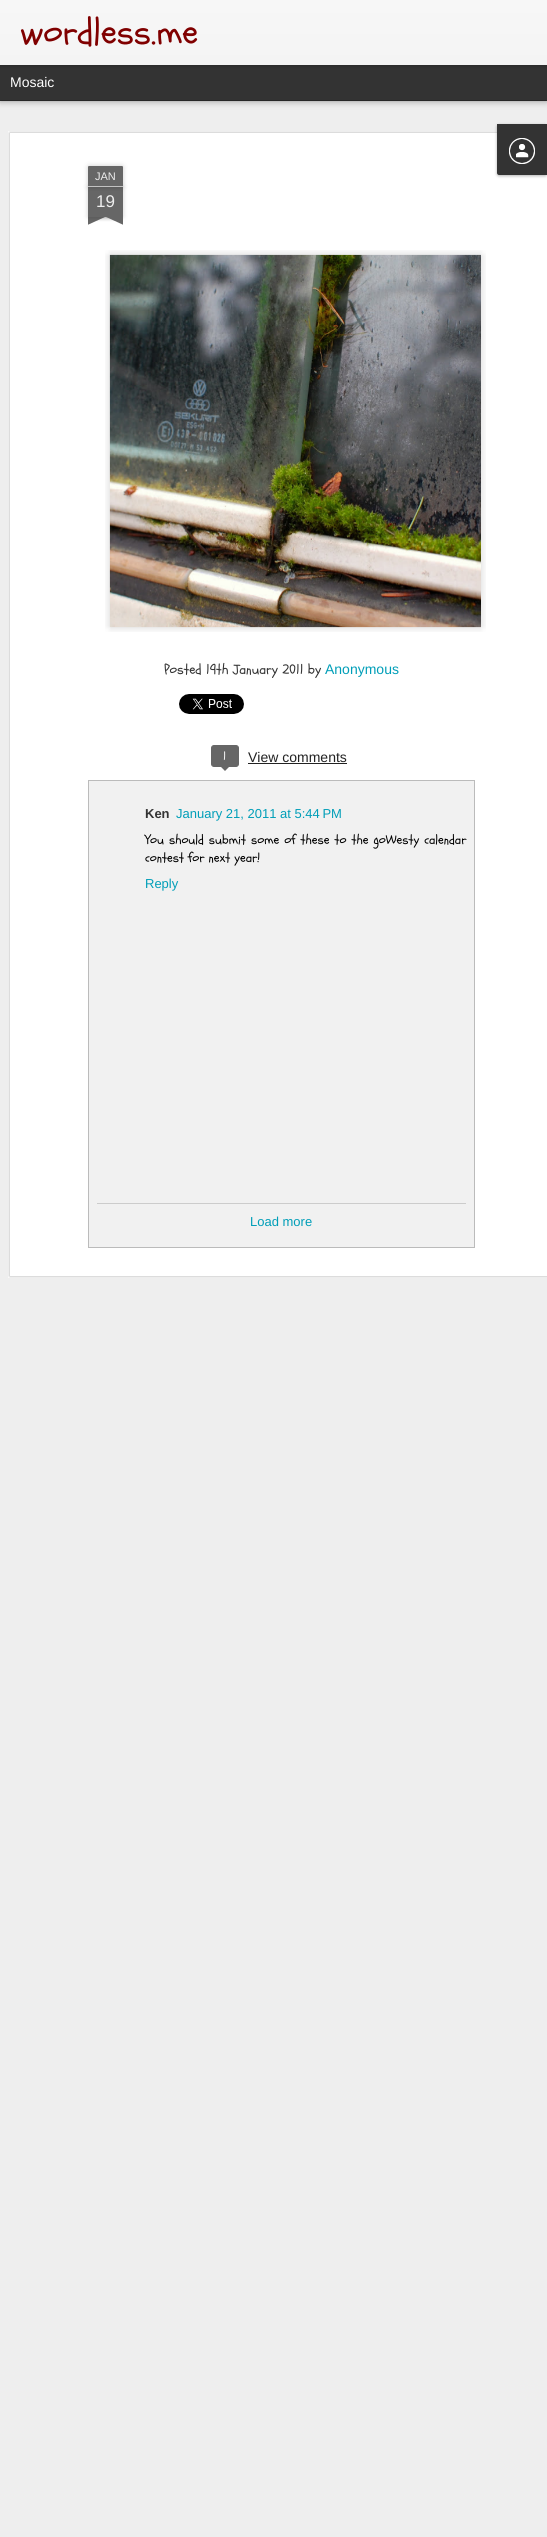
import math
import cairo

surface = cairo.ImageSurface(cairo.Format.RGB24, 547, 2537)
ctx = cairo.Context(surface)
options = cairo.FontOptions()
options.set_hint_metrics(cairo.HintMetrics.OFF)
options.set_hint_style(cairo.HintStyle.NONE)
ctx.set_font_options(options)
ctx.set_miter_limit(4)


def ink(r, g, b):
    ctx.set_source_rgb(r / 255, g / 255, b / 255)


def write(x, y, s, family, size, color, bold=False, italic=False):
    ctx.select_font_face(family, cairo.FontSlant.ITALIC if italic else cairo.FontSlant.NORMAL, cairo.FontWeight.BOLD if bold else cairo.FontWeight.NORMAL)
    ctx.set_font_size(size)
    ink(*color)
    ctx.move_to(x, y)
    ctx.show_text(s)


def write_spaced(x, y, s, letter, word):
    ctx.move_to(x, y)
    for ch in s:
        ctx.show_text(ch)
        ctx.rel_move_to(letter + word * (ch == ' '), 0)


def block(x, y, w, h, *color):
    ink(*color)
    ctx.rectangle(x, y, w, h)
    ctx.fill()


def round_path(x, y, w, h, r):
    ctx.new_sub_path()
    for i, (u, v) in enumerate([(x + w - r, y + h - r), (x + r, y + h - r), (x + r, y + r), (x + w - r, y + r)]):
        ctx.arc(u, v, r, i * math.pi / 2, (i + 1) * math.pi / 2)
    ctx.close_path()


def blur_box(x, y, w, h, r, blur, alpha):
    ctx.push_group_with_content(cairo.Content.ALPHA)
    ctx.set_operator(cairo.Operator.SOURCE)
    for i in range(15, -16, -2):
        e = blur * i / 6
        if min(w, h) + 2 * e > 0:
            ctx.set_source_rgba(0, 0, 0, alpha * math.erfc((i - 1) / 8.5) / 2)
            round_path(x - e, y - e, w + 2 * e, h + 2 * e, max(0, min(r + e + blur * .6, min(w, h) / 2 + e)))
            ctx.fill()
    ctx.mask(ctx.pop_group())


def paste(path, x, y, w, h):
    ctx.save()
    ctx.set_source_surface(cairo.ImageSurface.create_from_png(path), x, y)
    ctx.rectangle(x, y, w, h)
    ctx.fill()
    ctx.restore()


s1 = dict(family="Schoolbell", size=36, color=(128, 0, 0))
s2 = dict(family="Liberation Sans", size=14, color=(255, 255, 255))
s3 = dict(family="Liberation Sans", size=11, color=(238, 238, 238))
s4 = dict(family="Liberation Sans", size=17, color=(238, 238, 238))
s5 = dict(family="Schoolbell", size=14, color=(51, 51, 51))
s6 = dict(family="Liberation Sans", size=14, color=(0, 158, 184))
s7 = dict(family="Schoolbell", size=12, color=(255, 255, 255))
s8 = dict(family="Liberation Sans", size=14, color=(34, 34, 34))
s9 = dict(family="Liberation Sans", size=13, color=(51, 51, 51), bold=True)
s10 = dict(family="Liberation Sans", size=13, color=(0, 158, 184))
s11 = dict(family="Schoolbell", size=13, color=(0, 0, 0))

ink(51, 51, 51)
ctx.paint()
block(0, 101, 547, 2436, 238, 238, 238)
ink(0, 0, 0)
blur_box(0, 65, 547, 35, 0, 4, 0.5)
block(0, 65, 547, 35, 51, 51, 51)
ink(0, 0, 0)
blur_box(0, 0, 547, 65, 0, 2.5, 0.3)
gradient = cairo.LinearGradient(0, 0, 0, 65)
gradient.add_color_stop_rgba(0, 0.969, 0.969, 0.969, 1)
gradient.add_color_stop_rgba(1, 0.957, 0.957, 0.957, 1)
ctx.set_source(gradient)
ctx.rectangle(0, 0, 547, 65)
ctx.fill()
write(20, 44, "wordless.me", **s1)
write(10, 87, "Mosaic", **s2)
block(8, 131, 539, 1147, 255, 255, 255)
paste("pic2.png", 8, 131, 539, 1147)
ink(0, 0, 0)
blur_box(497, 125, 50, 51, 2, 1.5, 0.3)
ink(51, 51, 51)
ctx.new_path()
ctx.move_to(497, 124)
ctx.line_to(547, 124)
ctx.line_to(547, 175)
ctx.line_to(499, 175)
ctx.curve_to(498, 175, 497, 174, 497, 173)
ctx.close_path()
ctx.fill()
paste("pic1.png", 509, 138, 26, 26)
ink(0, 0, 0)
blur_box(88, 187, 35, 30, 0, 2.5, 0.2)
block(88, 187, 35, 30, 102, 102, 102)
ink(0, 0, 0)
blur_box(88, 166, 35, 21, 1, 2.5, 0.2)
ink(102, 102, 102)
ctx.new_path()
ctx.move_to(89, 166)
ctx.line_to(122, 166)
ctx.curve_to(122.5, 166, 123, 166.5, 123, 167)
ctx.line_to(123, 187)
ctx.line_to(88, 187)
ctx.line_to(88, 167)
ctx.curve_to(88, 166.5, 88.5, 166, 89, 166)
ctx.close_path()
ctx.fill()
block(88, 186, 35, 1, 194, 194, 194)
write(95, 180, "JAN", **s3)
write(96, 207, "19", **s4)
ctx.save()
ctx.rectangle(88, 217, 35, 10)
ctx.clip()
ink(0, 0, 0)
blur_box(79, 207, 50, 10, 0, 2.5, 0.2)
ctx.restore()
ctx.save()
ctx.rectangle(88, 217, 35, 10)
ctx.clip()
ink(102, 102, 102)
ctx.new_path()
ctx.move_to(79, 218)
ctx.line_to(125, 197)
ctx.line_to(129, 206)
ctx.line_to(83, 227)
ctx.close_path()
ctx.fill()
ctx.restore()
ctx.save()
ctx.rectangle(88, 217, 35, 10)
ctx.clip()
ink(0, 0, 0)
blur_box(82, 207, 50, 10, 0, 2.5, 0.2)
ctx.restore()
ctx.save()
ctx.rectangle(88, 217, 35, 10)
ctx.clip()
ink(102, 102, 102)
ctx.new_path()
ctx.move_to(86, 197)
ctx.line_to(132, 218)
ctx.line_to(128, 227)
ctx.line_to(82, 206)
ctx.close_path()
ctx.fill()
ctx.restore()
paste("pic3.png", 105, 250, 381, 382)
paste("pic4.png", 109, 254, 372, 374)
write(164, 674, "Posted 19th January 2011 by", **s5)
write(325, 674, "Anonymous", **s6)
paste("pic5.png", 179, 694, 65, 20)
ink(102, 102, 102)
round_path(211.5, 745.5, 27, 21, 2.5)
ctx.fill_preserve()
ctx.set_line_width(1)
ctx.stroke()
write(223, 760, "1", **s7)
ink(102, 102, 102)
ctx.new_path()
ctx.move_to(220, 766)
ctx.line_to(230, 766)
ctx.line_to(225, 771)
ctx.close_path()
ctx.fill()
write(248, 762, "View comments", **s8)
block(248, 763, 99, 1, 34, 34, 34)
ink(241, 241, 241)
ctx.rectangle(88.5, 780.5, 386, 467)
ctx.fill_preserve()
ink(187, 187, 187)
ctx.stroke()
write(145, 818, "Ken", **s9)
write(176, 818, "January 21, 2011 at 5:44 PM", **s10)
ctx.select_font_face("Schoolbell")
ink(0, 0, 0)
write_spaced(145, 844, "You should submit some of these to the goWesty calendar", 0, 1)
write(145, 862, "contest for next year!", **s11)
write(145, 888, "Reply", **s10)
block(97, 1203, 369, 1, 204, 204, 204)
write(250, 1226, "Load more", **s10)
surface.write_to_png("screenshot.png")
